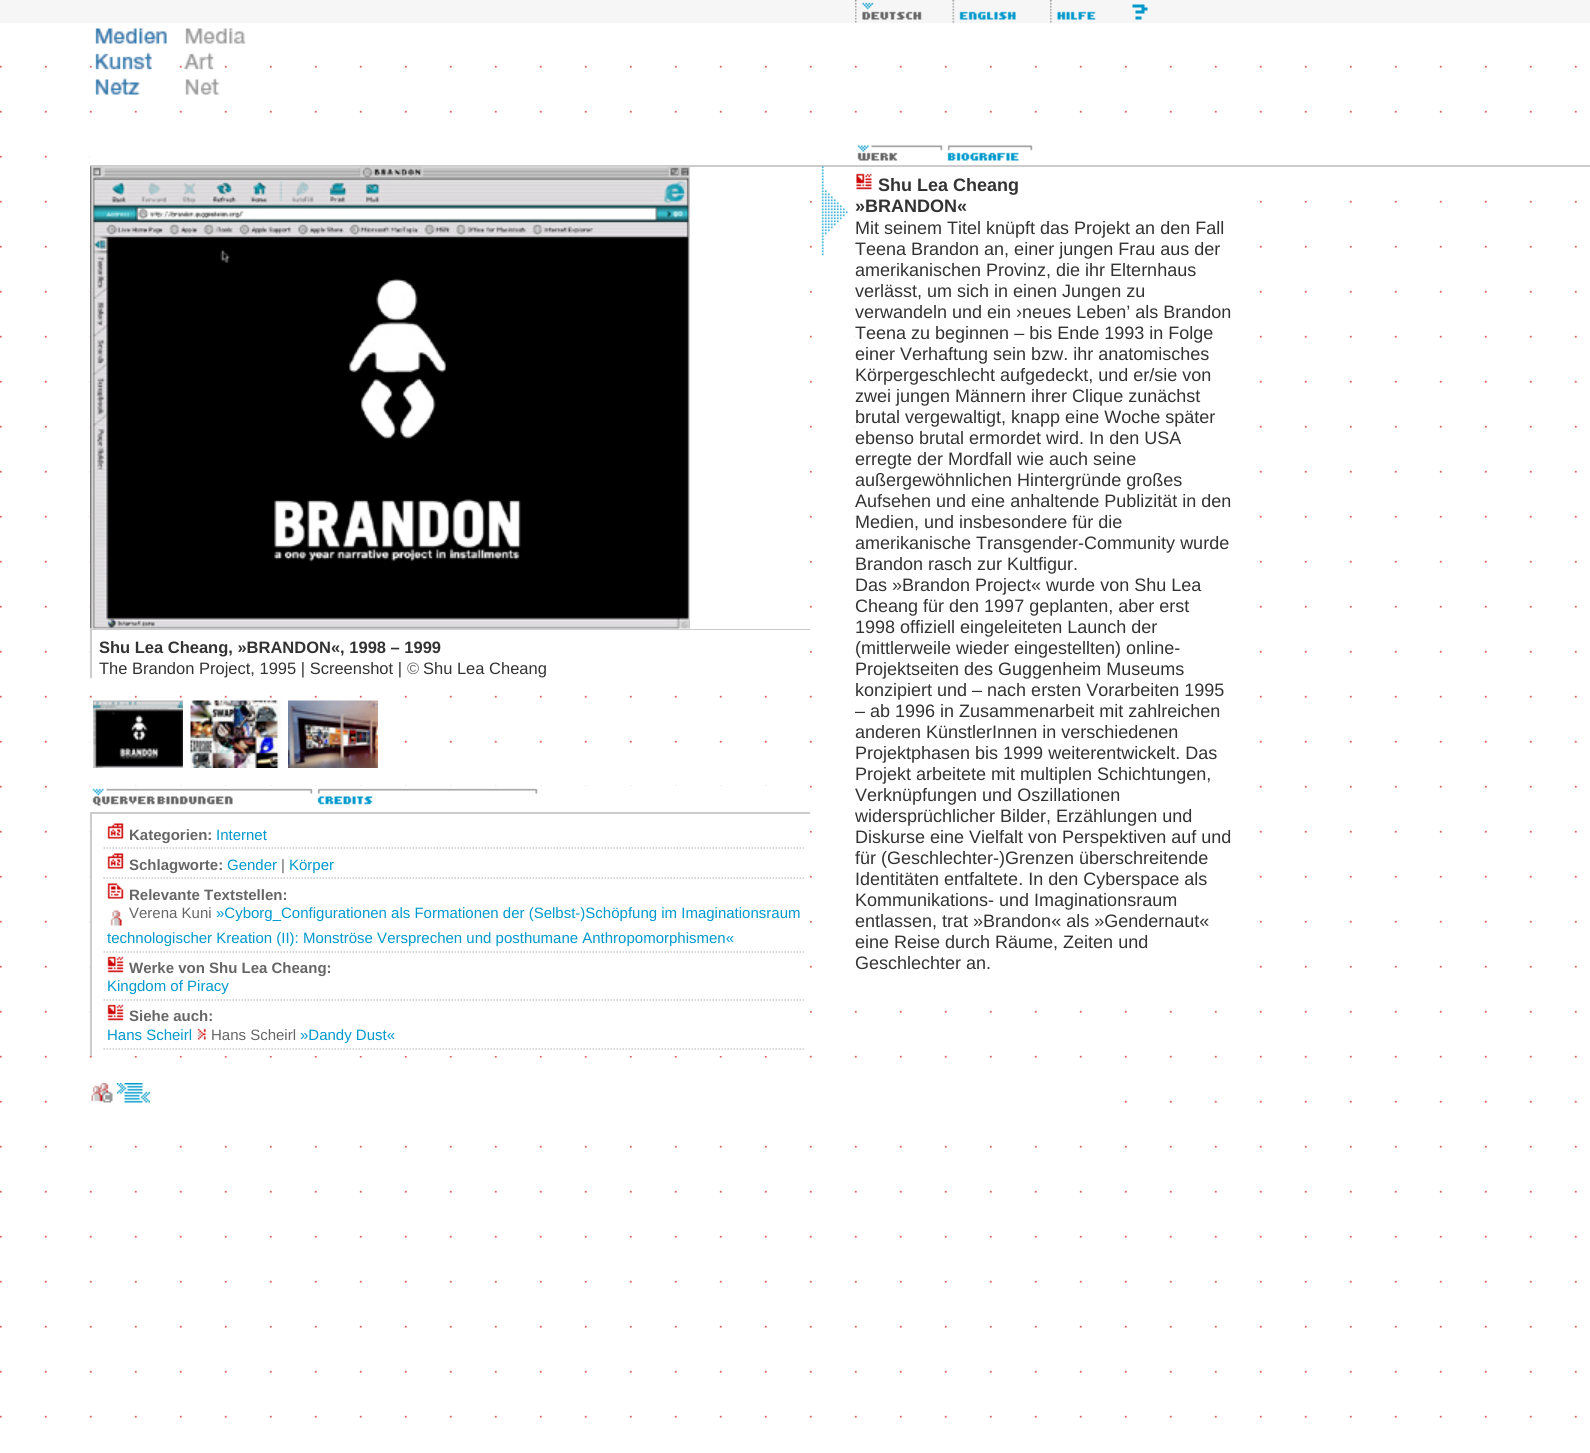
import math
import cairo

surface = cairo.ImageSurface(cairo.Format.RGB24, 1590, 1453)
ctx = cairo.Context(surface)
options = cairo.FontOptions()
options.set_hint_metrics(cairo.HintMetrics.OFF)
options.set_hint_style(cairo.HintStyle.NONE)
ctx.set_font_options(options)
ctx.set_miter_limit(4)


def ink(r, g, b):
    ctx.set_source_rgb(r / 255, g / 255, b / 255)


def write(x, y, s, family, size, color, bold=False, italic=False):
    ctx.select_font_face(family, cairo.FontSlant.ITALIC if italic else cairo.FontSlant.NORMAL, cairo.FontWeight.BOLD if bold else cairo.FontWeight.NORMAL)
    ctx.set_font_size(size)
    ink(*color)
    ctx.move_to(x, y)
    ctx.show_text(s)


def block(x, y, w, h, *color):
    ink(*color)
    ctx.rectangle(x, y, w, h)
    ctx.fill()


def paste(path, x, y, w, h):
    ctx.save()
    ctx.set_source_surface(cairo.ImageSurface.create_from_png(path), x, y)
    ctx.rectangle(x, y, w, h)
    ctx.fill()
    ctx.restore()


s1 = dict(family="Liberation Sans", size=16.5, color=(51, 51, 51), bold=True)
s2 = dict(family="Liberation Sans", size=16.5, color=(51, 51, 51))
s3 = dict(family="Liberation Sans", size=16.5, color=(102, 102, 102))
s4 = dict(family="Liberation Sans", size=15, color=(102, 102, 102), bold=True)
s5 = dict(family="Liberation Sans", size=15, color=(0, 153, 204))
s6 = dict(family="Liberation Sans", size=15, color=(102, 102, 102))
s7 = dict(family="Liberation Sans", size=18, color=(51, 51, 51), bold=True)
s8 = dict(family="Liberation Sans", size=18, color=(51, 51, 51))

ink(255, 255, 255)
ctx.paint()
paste("pic1.png", 0, 65, 1577, 1353)
block(0, 0, 1590, 23, 246, 246, 246)
paste("pic2.png", 855, 0, 67, 23)
paste("pic3.png", 952, 0, 64, 23)
paste("pic4.png", 1050, 0, 98, 23)
paste("pic5.png", 95, 28, 72, 67)
paste("pic6.png", 184, 28, 62, 67)
block(90, 155, 1487, 3, 255, 255, 255)
block(90, 165, 1500, 2, 204, 204, 204)
paste("pic7.png", 857, 145, 86, 16)
paste("pic8.png", 947, 145, 86, 16)
paste("pic9.png", 821, 166, 27, 90)
block(90, 200, 720, 408, 255, 255, 255)
block(90, 629, 720, 1, 204, 204, 204)
paste("pic10.png", 90, 166, 600, 463)
block(134, 650, 676, 3, 255, 255, 255)
block(90, 630, 2, 48, 204, 204, 204)
write(99, 653, "Shu Lea Cheang, »BRANDON«, 1998 – 1999", **s1)
write(99, 674, "The Brandon Project, 1995 | Screenshot |", **s2)
write(407, 674, "©", **s3)
write(423, 674, "Shu Lea Cheang", **s2)
ctx.rectangle(91.5, 699.5, 93, 70)
ink(255, 255, 255)
ctx.set_line_width(3)
ctx.stroke()
paste("pic11.png", 93, 700, 90, 68)
paste("pic12.png", 190, 700, 91, 68)
paste("pic13.png", 288, 700, 90, 68)
block(90, 786, 720, 2, 255, 255, 255)
paste("pic14.png", 92, 788, 221, 18)
paste("pic15.png", 317, 788, 221, 17)
block(134, 830, 676, 226, 255, 255, 255)
block(90, 812, 720, 2, 204, 204, 204)
block(90, 812, 2, 244, 204, 204, 204)
ctx.new_path()
ctx.move_to(103.5, 848)
ctx.line_to(804, 848)
ctx.set_line_width(1.5)
ctx.set_dash([1.5, 1.5])
ctx.stroke()
paste("pic16.png", 107, 823, 17, 16)
write(129, 840, "Kategorien:", **s4)
write(216, 840, "Internet", **s5)
ctx.new_path()
ctx.move_to(103.5, 878)
ctx.line_to(804, 878)
ink(204, 204, 204)
ctx.stroke()
paste("pic16.png", 107, 853, 17, 16)
write(129, 870, "Schlagworte:", **s4)
write(227, 870, "Gender", **s5)
write(281, 870, "|", **s6)
write(289, 870, "Körper", **s5)
ctx.new_path()
ctx.move_to(103.5, 952)
ctx.line_to(804, 952)
ink(204, 204, 204)
ctx.stroke()
paste("pic17.png", 107, 883, 17, 16)
write(129, 900, "Relevante Textstellen:", **s4)
paste("pic18.png", 110, 910, 12, 16)
write(129, 918, "Verena Kuni", **s6)
write(216, 918, "»Cyborg_Configurationen als Formationen der (Selbst-)Schöpfung im Imaginationsraum", **s5)
write(107, 943, "technologischer Kreation (II): Monströse Versprechen und posthumane Anthropomorphismen«", **s5)
ctx.new_path()
ctx.move_to(103.5, 1000)
ctx.line_to(804, 1000)
ink(204, 204, 204)
ctx.stroke()
paste("pic19.png", 107, 956, 17, 17)
write(129, 973, "Werke von Shu Lea Cheang:", **s4)
write(107, 991, "Kingdom of Piracy", **s5)
ctx.new_path()
ctx.move_to(103.5, 1049)
ctx.line_to(804, 1049)
ink(204, 204, 204)
ctx.stroke()
paste("pic19.png", 107, 1004, 17, 17)
write(129, 1021, "Siehe auch:", **s4)
write(107, 1040, "Hans Scheirl", **s5)
paste("pic20.png", 197, 1028, 9, 12)
write(211, 1040, "Hans Scheirl", **s6)
write(300, 1040, "»Dandy Dust«", **s5)
block(855, 200, 362, 768, 255, 255, 255)
paste("pic21.png", 856, 173, 16, 17)
write(878, 191, "Shu Lea Cheang", **s7)
write(855, 212, "»BRANDON«", **s7)
write(855, 234, "Mit seinem Titel knüpft das Projekt an den Fall", **s8)
write(855, 255, "Teena Brandon an, einer jungen Frau aus der", **s8)
write(855, 276, "amerikanischen Provinz, die ihr Elternhaus", **s8)
write(855, 297, "verlässt, um sich in einen Jungen zu", **s8)
write(855, 318, "verwandeln und ein ›neues Leben’ als Brandon", **s8)
write(855, 339, "Teena zu beginnen – bis Ende 1993 in Folge", **s8)
write(855, 360, "einer Verhaftung sein bzw. ihr anatomisches", **s8)
write(855, 381, "Körpergeschlecht aufgedeckt, und er/sie von", **s8)
write(855, 402, "zwei jungen Männern ihrer Clique zunächst", **s8)
write(855, 423, "brutal vergewaltigt, knapp eine Woche später", **s8)
write(855, 444, "ebenso brutal ermordet wird. In den USA", **s8)
write(855, 465, "erregte der Mordfall wie auch seine", **s8)
write(855, 486, "außergewöhnlichen Hintergründe großes", **s8)
write(855, 507, "Aufsehen und eine anhaltende Publizität in den", **s8)
write(855, 528, "Medien, und insbesondere für die", **s8)
write(855, 549, "amerikanische Transgender-Community wurde", **s8)
write(855, 570, "Brandon rasch zur Kultfigur.", **s8)
write(855, 591, "Das »Brandon Project« wurde von Shu Lea", **s8)
write(855, 612, "Cheang für den 1997 geplanten, aber erst", **s8)
write(855, 633, "1998 offiziell eingeleiteten Launch der", **s8)
write(855, 654, "(mittlerweile wieder eingestellten) online-", **s8)
write(855, 675, "Projektseiten des Guggenheim Museums", **s8)
write(855, 696, "konzipiert und – nach ersten Vorarbeiten 1995", **s8)
write(855, 717, "– ab 1996 in Zusammenarbeit mit zahlreichen", **s8)
write(855, 738, "anderen KünstlerInnen in verschiedenen", **s8)
write(855, 759, "Projektphasen bis 1999 weiterentwickelt. Das", **s8)
write(855, 780, "Projekt arbeitete mit multiplen Schichtungen,", **s8)
write(855, 801, "Verknüpfungen und Oszillationen", **s8)
write(855, 822, "widersprüchlicher Bilder, Erzählungen und", **s8)
write(855, 843, "Diskurse eine Vielfalt von Perspektiven auf und", **s8)
write(855, 864, "für (Geschlechter-)Grenzen überschreitende", **s8)
write(855, 885, "Identitäten entfaltete. In den Cyberspace als", **s8)
write(855, 906, "Kommunikations- und Imaginationsraum", **s8)
write(855, 927, "entlassen, trat »Brandon« als »Gendernaut«", **s8)
write(855, 948, "eine Reise durch Räume, Zeiten und", **s8)
write(855, 969, "Geschlechter an.", **s8)
block(90, 1100, 992, 3, 255, 255, 255)
paste("pic22.png", 91, 1083, 22, 20)
paste("pic23.png", 117, 1083, 33, 20)
surface.write_to_png("screenshot.png")
